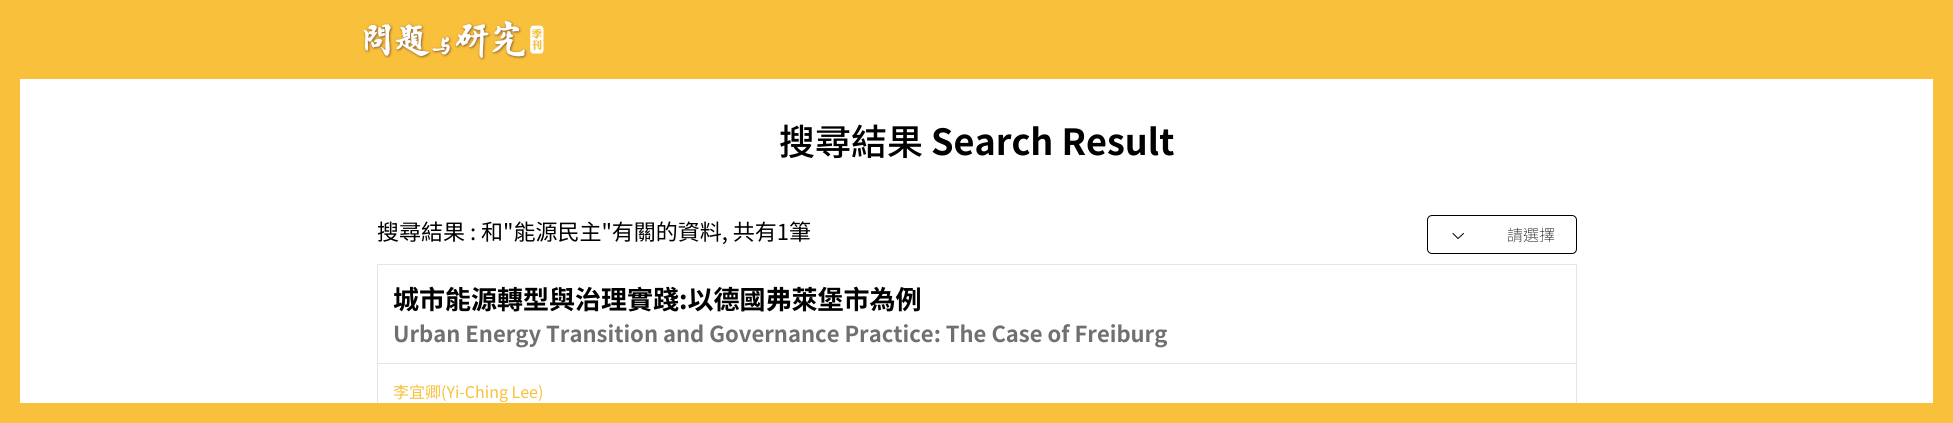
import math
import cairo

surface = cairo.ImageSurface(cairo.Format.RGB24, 1953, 423)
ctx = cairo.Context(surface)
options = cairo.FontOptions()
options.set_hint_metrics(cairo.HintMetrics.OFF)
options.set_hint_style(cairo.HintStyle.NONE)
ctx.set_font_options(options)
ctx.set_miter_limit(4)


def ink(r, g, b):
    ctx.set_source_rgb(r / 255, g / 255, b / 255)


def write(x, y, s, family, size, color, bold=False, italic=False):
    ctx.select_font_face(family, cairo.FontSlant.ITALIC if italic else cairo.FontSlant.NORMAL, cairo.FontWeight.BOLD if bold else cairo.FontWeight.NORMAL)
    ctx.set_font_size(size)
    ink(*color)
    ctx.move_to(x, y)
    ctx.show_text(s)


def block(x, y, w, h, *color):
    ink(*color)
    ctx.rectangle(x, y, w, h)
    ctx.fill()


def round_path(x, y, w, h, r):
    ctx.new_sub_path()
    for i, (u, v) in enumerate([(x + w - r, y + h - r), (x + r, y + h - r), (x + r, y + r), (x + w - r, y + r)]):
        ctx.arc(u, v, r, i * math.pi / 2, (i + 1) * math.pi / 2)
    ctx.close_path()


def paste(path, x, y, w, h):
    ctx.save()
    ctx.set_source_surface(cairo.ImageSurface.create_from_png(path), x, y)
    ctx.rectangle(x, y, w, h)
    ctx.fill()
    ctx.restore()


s1 = dict(family="Noto Sans TC Medium", size=36, color=(0, 0, 0))
s2 = dict(family="Noto Sans TC", size=36, color=(0, 0, 0), bold=True)
s3 = dict(family="Noto Sans TC", size=22, color=(0, 0, 0))
s4 = dict(family="Noto Sans TC Thin", size=16, color=(0, 0, 0))
s5 = dict(family="Noto Sans TC", size=26, color=(0, 0, 0), bold=True)
s6 = dict(family="Noto Sans TC", size=22, color=(112, 112, 112), bold=True)
s7 = dict(family="Noto Sans TC", size=16, color=(249, 192, 59))

ink(255, 255, 255)
ctx.paint()
block(0, 0, 20, 403, 249, 192, 59)
block(20, 0, 1913, 79, 249, 192, 59)
paste("pic1.png", 363, 20, 181, 41)
block(1933, 0, 20, 403, 249, 192, 59)
write(779, 155, "搜尋結果", **s1)
write(931, 155, "Search Result", **s2)
write(377, 240, "搜尋結果 : 和\"能源民主\"有關的資料, 共有1筆", **s3)
round_path(1427.5, 215.5, 149, 38, 4.5)
ctx.set_line_width(1)
ctx.stroke()
ctx.new_path()
ctx.move_to(1453, 233.5)
ctx.line_to(1458, 238.5)
ctx.line_to(1463.5, 233.5)
ctx.set_line_cap(cairo.LineCap.ROUND)
ctx.set_line_join(cairo.LineJoin.ROUND)
ctx.stroke()
write(1507, 241, "請選擇", **s4)
ctx.rectangle(377.5, 264.5, 1199, 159)
ink(229, 229, 229)
ctx.set_line_cap(cairo.LineCap.BUTT)
ctx.set_line_join(cairo.LineJoin.MITER)
ctx.stroke()
block(378, 363, 1198, 1, 229, 229, 229)
write(393, 309, "城市能源轉型與治理實踐:以德國弗萊堡市為例", **s5)
write(393, 342, "Urban Energy Transition and Governance Practice: The Case of Freiburg", **s6)
write(393, 398, "李宜卿(Yi-Ching Lee)", **s7)
block(0, 403, 1953, 20, 249, 192, 59)
surface.write_to_png("screenshot.png")
